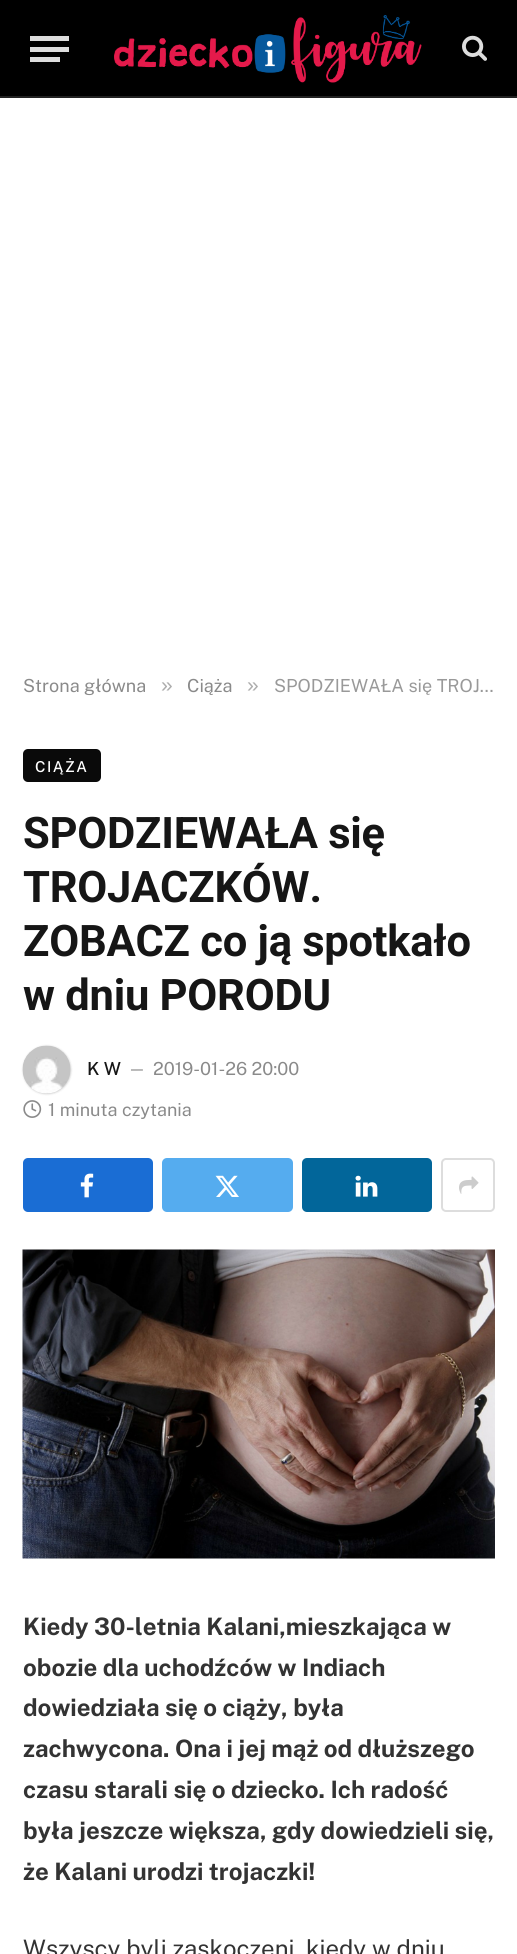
import math
import cairo

surface = cairo.ImageSurface(cairo.Format.RGB24, 517, 1954)
ctx = cairo.Context(surface)
options = cairo.FontOptions()
options.set_hint_metrics(cairo.HintMetrics.OFF)
options.set_hint_style(cairo.HintStyle.NONE)
ctx.set_font_options(options)
ctx.set_miter_limit(4)


def ink(r, g, b):
    ctx.set_source_rgb(r / 255, g / 255, b / 255)


def write(x, y, s, family, size, color, bold=False, italic=False):
    ctx.select_font_face(family, cairo.FontSlant.ITALIC if italic else cairo.FontSlant.NORMAL, cairo.FontWeight.BOLD if bold else cairo.FontWeight.NORMAL)
    ctx.set_font_size(size)
    ink(*color)
    ctx.move_to(x, y)
    ctx.show_text(s)


def write_spaced(x, y, s, letter, word):
    ctx.move_to(x, y)
    for ch in s:
        ctx.show_text(ch)
        ctx.rel_move_to(letter + word * (ch == ' '), 0)


def block(x, y, w, h, *color):
    ink(*color)
    ctx.rectangle(x, y, w, h)
    ctx.fill()


def round_path(x, y, w, h, r):
    ctx.new_sub_path()
    for i, (u, v) in enumerate([(x + w - r, y + h - r), (x + r, y + h - r), (x + r, y + r), (x + w - r, y + r)]):
        ctx.arc(u, v, r, i * math.pi / 2, (i + 1) * math.pi / 2)
    ctx.close_path()


def blur_box(x, y, w, h, r, blur, alpha):
    ctx.push_group_with_content(cairo.Content.ALPHA)
    ctx.set_operator(cairo.Operator.SOURCE)
    for i in range(15, -16, -2):
        e = blur * i / 6
        if min(w, h) + 2 * e > 0:
            ctx.set_source_rgba(0, 0, 0, alpha * math.erfc((i - 1) / 8.5) / 2)
            round_path(x - e, y - e, w + 2 * e, h + 2 * e, max(0, min(r + e + blur * .6, min(w, h) / 2 + e)))
            ctx.fill()
    ctx.mask(ctx.pop_group())


def paste(path, x, y, w, h):
    ctx.save()
    ctx.set_source_surface(cairo.ImageSurface.create_from_png(path), x, y)
    ctx.rectangle(x, y, w, h)
    ctx.fill()
    ctx.restore()


s1 = dict(family="Public Sans", size=18, color=(138, 138, 138))
s2 = dict(family="Liberation Sans", size=21, color=(173, 173, 173))
s3 = dict(family="Public Sans", size=18, color=(153, 153, 153))
s4 = dict(family="Public Sans Medium", size=18, color=(22, 22, 22))
s5 = dict(family="Public Sans", size=16, color=(138, 138, 138))
s6 = dict(family="Public Sans", size=24, color=(51, 51, 51), bold=True)
s7 = dict(family="Public Sans", size=24, color=(51, 51, 51))

ink(255, 255, 255)
ctx.paint()
block(0, 0, 517, 96, 0, 0, 0)
block(0, 96, 517, 2, 34, 34, 34)
block(30, 57, 30, 5, 221, 221, 221)
block(30, 36, 39, 5, 221, 221, 221)
block(30, 47, 39, 5, 221, 221, 221)
paste("pic1.png", 114, 15, 308, 68)
paste("pic2.png", 462, 35, 25, 26)
write(23, 692, "Strona główna", **s1)
write(161, 692, "»", **s2)
write(187, 692, "Ciąża", **s1)
write(247, 692, "»", **s2)
write(274, 692, "SPODZIEWAŁA się TROJ…", **s3)
ink(10, 10, 10)
round_path(23, 749, 78, 33, 5)
ctx.fill()
ctx.select_font_face("Public Sans Medium")
ctx.set_font_size(15)
ink(255, 255, 255)
write_spaced(35, 772, "CIĄŻA", 1.5, 0)
ctx.select_font_face("Roboto", cairo.FontSlant.NORMAL, cairo.FontWeight.BOLD)
ctx.set_font_size(43.5)
ink(22, 22, 22)
write_spaced(23, 848, "SPODZIEWAŁA się", -0.25, 0)
write_spaced(23, 902, "TROJACZKÓW.", -0.25, 0)
write_spaced(23, 956, "ZOBACZ co ją spotkało", -0.25, 0)
write_spaced(23, 1010, "w dniu PORODU", -0.25, 0)
ink(0, 0, 0)
blur_box(23, 1046, 48, 48, 24, 1, 0.2)
paste("pic3.png", 22, 1045, 49, 49)
write(87, 1075, "K W", **s4)
write(128, 1074, "—", **s5)
write(153, 1075, "2019-01-26 20:00", **s1)
paste("pic4.png", 23, 1100, 19, 18)
write(48, 1116, "1 minuta czytania", **s1)
ink(26, 109, 212)
round_path(23, 1158, 130, 54, 5)
ctx.fill()
paste("pic5.png", 80, 1173, 14, 25)
ink(85, 172, 239)
round_path(162, 1158, 131, 54, 5)
ctx.fill()
paste("pic6.png", 215, 1175, 24, 22)
ink(2, 102, 154)
round_path(302, 1158, 130, 54, 5)
ctx.fill()
paste("pic7.png", 355, 1175, 23, 22)
round_path(442, 1159, 52, 52, 4)
ink(221, 221, 221)
ctx.stroke()
paste("pic8.png", 459, 1176, 20, 18)
paste("pic9.png", 22, 1249, 473, 310)
write(23, 1635, "Kiedy 30-letnia Kalani,mieszkająca w", **s6)
write(23, 1676, "obozie dla uchodźców w Indiach", **s6)
write(23, 1716, "dowiedziała się o ciąży, była", **s6)
write(23, 1757, "zachwycona. Ona i jej mąż od dłuższego", **s6)
write(23, 1798, "czasu starali się o dziecko. Ich radość", **s6)
write(23, 1839, "była jeszcze większa, gdy dowiedzieli się,", **s6)
write(23, 1880, "że Kalani urodzi trojaczki!", **s6)
write(23, 1957, "Wszyscy byli zaskoczeni, kiedy w dniu", **s7)
surface.write_to_png("screenshot.png")
